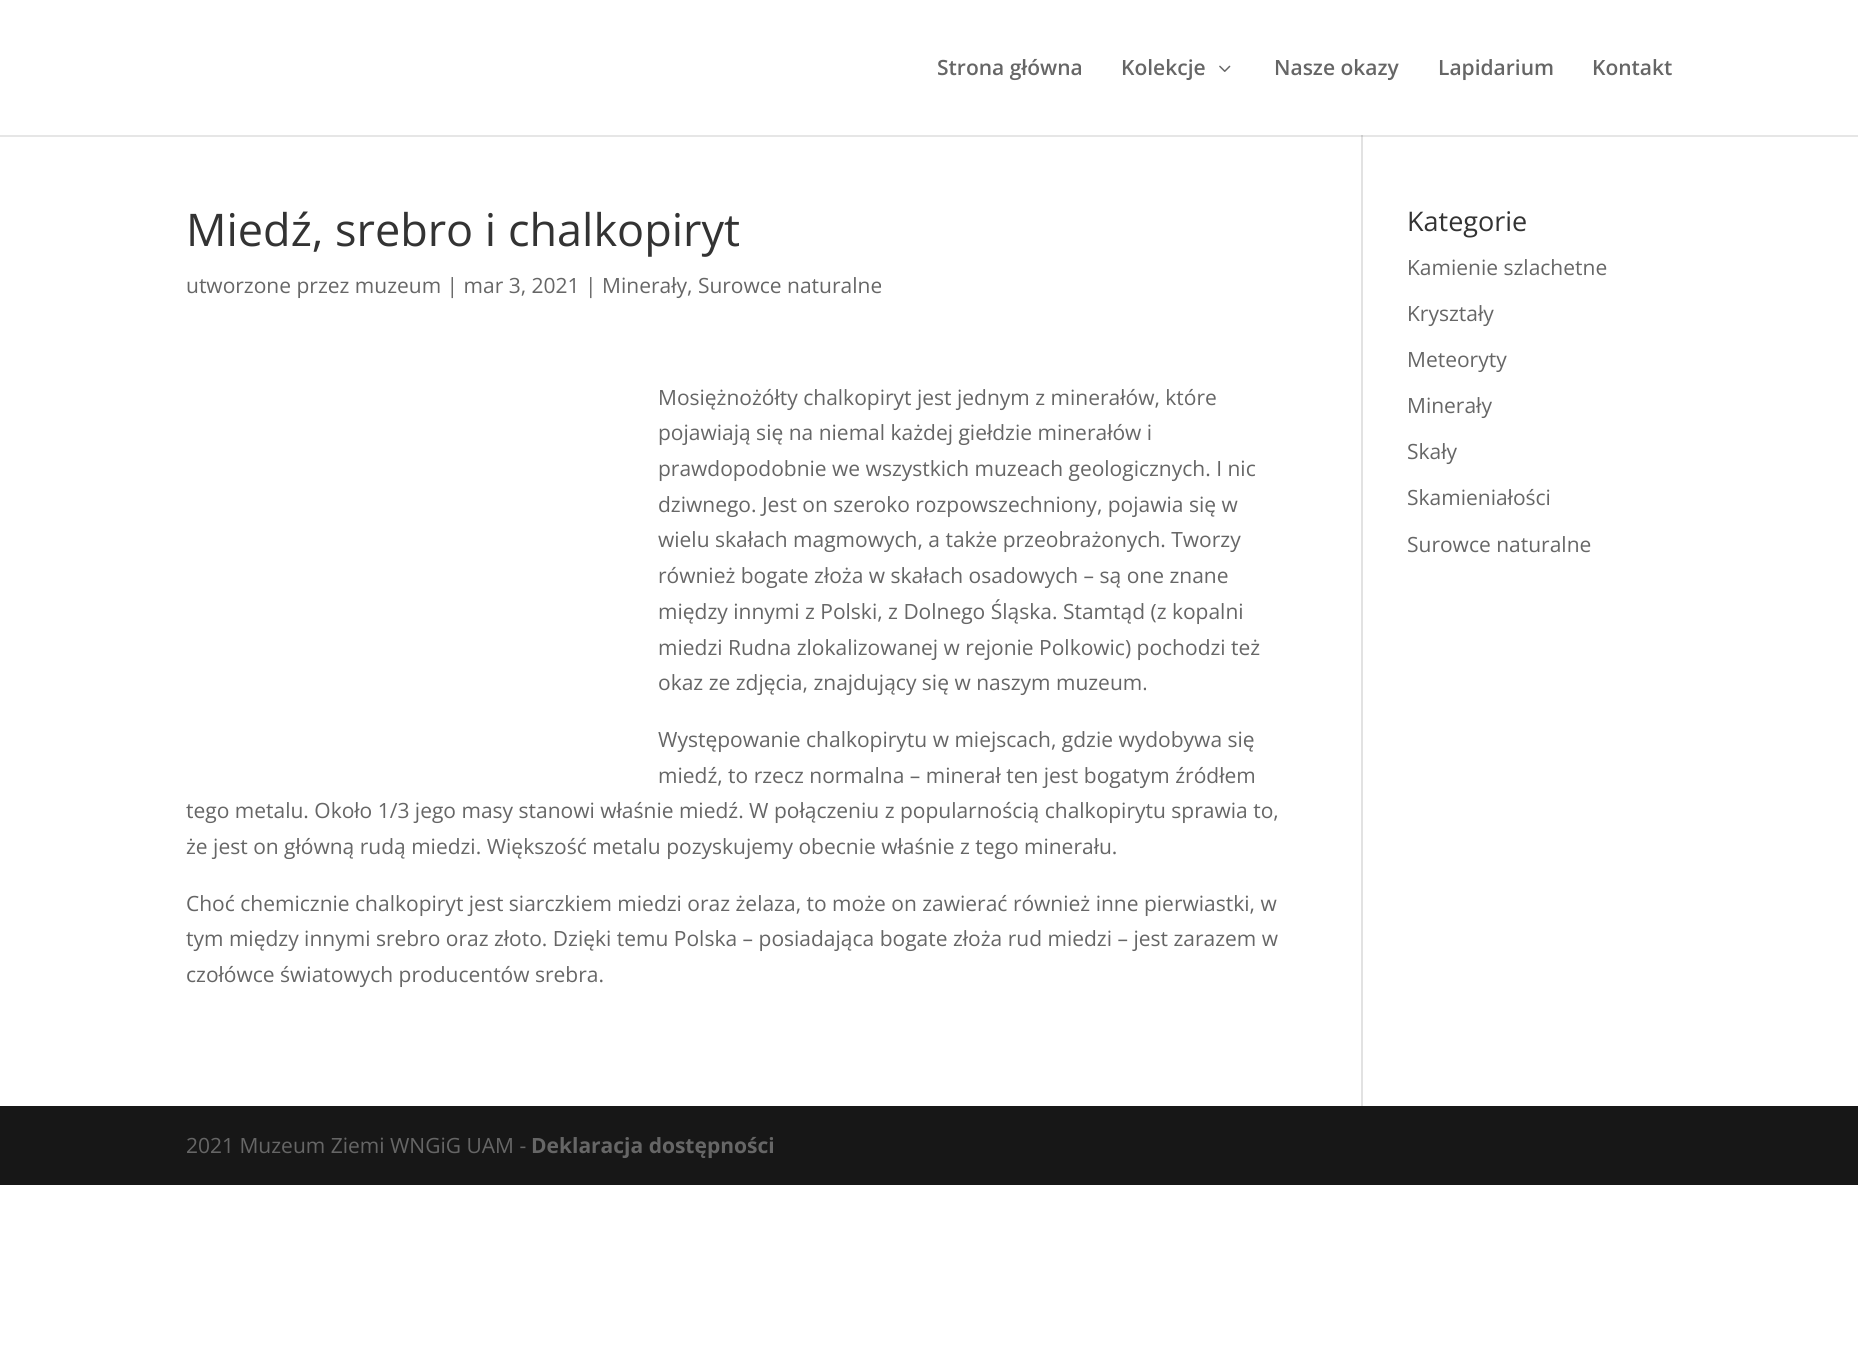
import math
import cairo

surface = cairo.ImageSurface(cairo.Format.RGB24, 1858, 1352)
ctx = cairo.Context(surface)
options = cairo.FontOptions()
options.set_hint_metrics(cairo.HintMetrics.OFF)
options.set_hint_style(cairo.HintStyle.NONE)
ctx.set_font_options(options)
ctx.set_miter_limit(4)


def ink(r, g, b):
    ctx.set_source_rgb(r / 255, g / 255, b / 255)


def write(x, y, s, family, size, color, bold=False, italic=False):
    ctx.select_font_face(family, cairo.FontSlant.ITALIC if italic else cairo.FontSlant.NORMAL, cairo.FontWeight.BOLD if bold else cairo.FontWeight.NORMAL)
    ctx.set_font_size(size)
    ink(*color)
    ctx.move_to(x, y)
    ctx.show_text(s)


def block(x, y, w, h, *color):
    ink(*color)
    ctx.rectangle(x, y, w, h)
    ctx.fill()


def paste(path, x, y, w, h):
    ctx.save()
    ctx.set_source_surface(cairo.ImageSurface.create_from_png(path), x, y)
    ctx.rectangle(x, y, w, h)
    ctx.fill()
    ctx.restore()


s1 = dict(family="Open Sans SemiBold", size=21, color=(102, 102, 102))
s2 = dict(family="Open Sans", size=45, color=(51, 51, 51))
s3 = dict(family="Open Sans", size=21, color=(102, 102, 102))
s4 = dict(family="Open Sans", size=27, color=(51, 51, 51))
s5 = dict(family="Open Sans", size=21, color=(102, 102, 102), bold=True)

ink(255, 255, 255)
ctx.paint()
block(1361, 135, 2, 971, 226, 226, 226)
ctx.set_source_rgba(0, 0, 0, 0.1)
ctx.new_path()
ctx.move_to(0, 135)
ctx.line_to(0, 137)
ctx.line_to(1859, 137)
ctx.line_to(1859, 2)
ctx.line_to(1858, 2)
ctx.line_to(1858, 135)
ctx.close_path()
ctx.fill()
write(937, 75, "Strona główna", **s1)
write(1121, 75, "Kolekcje", **s1)
paste("pic1.png", 1219, 65, 12, 7)
write(1274, 75, "Nasze okazy", **s1)
write(1438, 75, "Lapidarium", **s1)
write(1592, 75, "Kontakt", **s1)
write(186, 246, "Miedź, srebro i chalkopiryt", **s2)
write(186, 293, "utworzone przez muzeum | mar 3, 2021 | Minerały, Surowce naturalne", **s3)
write(658, 405, "Mosiężnożółty chalkopiryt jest jednym z minerałów, które", **s3)
write(658, 440, "pojawiają się na niemal każdej giełdzie minerałów i", **s3)
write(658, 476, "prawdopodobnie we wszystkich muzeach geologicznych. I nic", **s3)
write(658, 512, "dziwnego. Jest on szeroko rozpowszechniony, pojawia się w", **s3)
write(658, 547, "wielu skałach magmowych, a także przeobrażonych. Tworzy", **s3)
write(658, 583, "również bogate złoża w skałach osadowych – są one znane", **s3)
write(658, 619, "między innymi z Polski, z Dolnego Śląska. Stamtąd (z kopalni", **s3)
write(658, 655, "miedzi Rudna zlokalizowanej w rejonie Polkowic) pochodzi też", **s3)
write(658, 690, "okaz ze zdjęcia, znajdujący się w naszym muzeum.", **s3)
write(658, 747, "Występowanie chalkopirytu w miejscach, gdzie wydobywa się", **s3)
write(658, 783, "miedź, to rzecz normalna – minerał ten jest bogatym źródłem", **s3)
write(186, 818, "tego metalu. Około 1/3 jego masy stanowi właśnie miedź. W połączeniu z popularnością chalkopirytu sprawia to,", **s3)
write(186, 854, "że jest on główną rudą miedzi. Większość metalu pozyskujemy obecnie właśnie z tego minerału.", **s3)
write(186, 911, "Choć chemicznie chalkopiryt jest siarczkiem miedzi oraz żelaza, to może on zawierać również inne pierwiastki, w", **s3)
write(186, 946, "tym między innymi srebro oraz złoto. Dzięki temu Polska – posiadająca bogate złoża rud miedzi – jest zarazem w", **s3)
write(186, 982, "czołówce światowych producentów srebra.", **s3)
write(1407, 231, "Kategorie", **s4)
write(1407, 275, "Kamienie szlachetne", **s3)
write(1407, 321, "Kryształy", **s3)
write(1407, 367, "Meteoryty", **s3)
write(1407, 413, "Minerały", **s3)
write(1407, 459, "Skały", **s3)
write(1407, 505, "Skamieniałości", **s3)
write(1407, 552, "Surowce naturalne", **s3)
block(0, 1106, 1858, 79, 23, 23, 23)
write(186, 1153, "2021 Muzeum Ziemi WNGiG UAM -", **s3)
write(531, 1153, "Deklaracja dostępności", **s5)
surface.write_to_png("screenshot.png")
